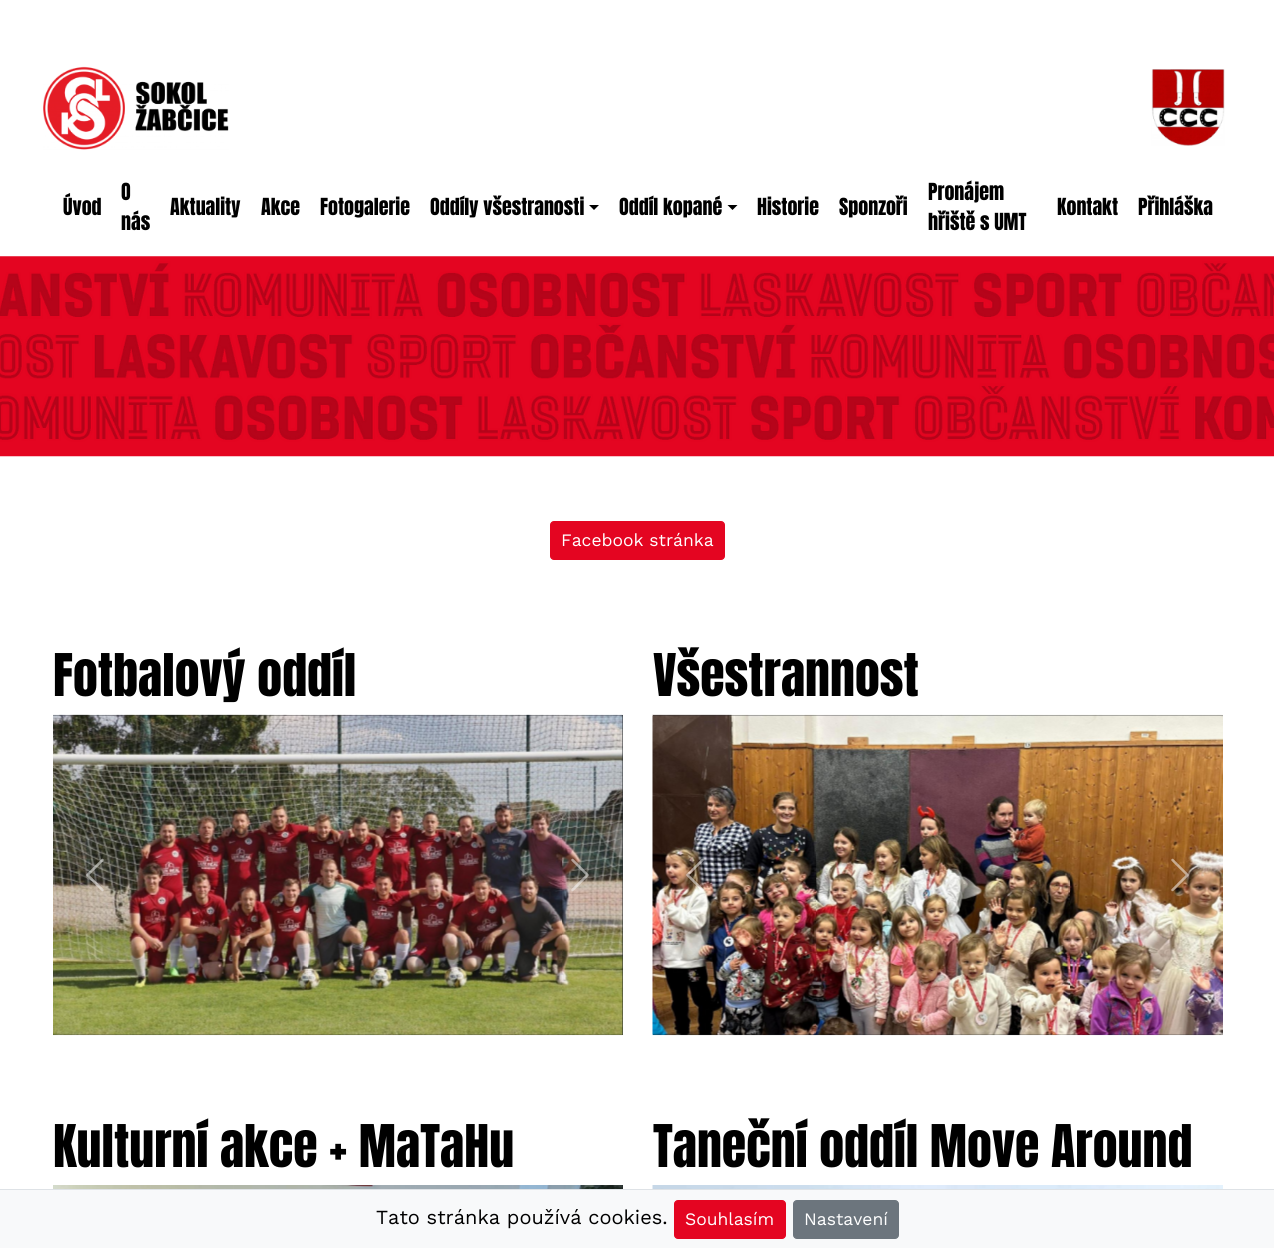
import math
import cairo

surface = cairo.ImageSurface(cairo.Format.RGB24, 1274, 1248)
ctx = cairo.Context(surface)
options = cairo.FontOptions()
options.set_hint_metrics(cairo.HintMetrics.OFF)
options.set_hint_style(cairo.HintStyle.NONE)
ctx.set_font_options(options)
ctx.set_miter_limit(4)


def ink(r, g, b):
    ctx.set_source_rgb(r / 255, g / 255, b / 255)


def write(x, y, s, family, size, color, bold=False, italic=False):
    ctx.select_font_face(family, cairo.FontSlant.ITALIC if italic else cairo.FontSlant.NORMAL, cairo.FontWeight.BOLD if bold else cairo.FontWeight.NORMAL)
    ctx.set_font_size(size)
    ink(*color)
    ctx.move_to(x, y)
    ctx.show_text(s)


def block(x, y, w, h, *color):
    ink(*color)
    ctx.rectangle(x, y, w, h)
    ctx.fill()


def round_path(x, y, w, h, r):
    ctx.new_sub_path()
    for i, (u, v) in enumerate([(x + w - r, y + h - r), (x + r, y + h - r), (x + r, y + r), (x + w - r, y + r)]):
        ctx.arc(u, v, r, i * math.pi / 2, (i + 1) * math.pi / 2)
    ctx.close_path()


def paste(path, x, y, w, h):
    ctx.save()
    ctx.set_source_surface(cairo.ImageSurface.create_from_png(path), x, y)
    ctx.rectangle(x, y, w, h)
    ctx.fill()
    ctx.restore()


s1 = dict(family="Anton", size=20, color=(0, 0, 0))
s2 = dict(family="Work Sans", size=17.5, color=(255, 255, 255))
s3 = dict(family="Anton", size=50, color=(0, 0, 0))
s4 = dict(family="Work Sans", size=20, color=(0, 0, 0))

ink(255, 255, 255)
ctx.paint()
paste("pic1.png", 43, 66, 186, 84)
paste("pic2.png", 1151, 69, 74, 77)
write(63, 215, "Úvod", **s1)
write(121, 200, "O", **s1)
write(121, 230, "nás", **s1)
write(170, 215, "Aktuality", **s1)
write(261, 215, "Akce", **s1)
write(320, 215, "Fotogalerie", **s1)
write(430, 215, "Oddíly všestranosti", **s1)
ctx.new_path()
ctx.move_to(589, 205)
ctx.line_to(599, 205)
ctx.line_to(594, 210)
ctx.close_path()
ctx.fill()
write(619, 215, "Oddíl kopané", **s1)
ctx.new_path()
ctx.move_to(727.5, 205)
ctx.line_to(737.5, 205)
ctx.line_to(732.5, 210)
ctx.close_path()
ctx.fill()
write(757, 215, "Historie", **s1)
write(839, 215, "Sponzoři", **s1)
write(928, 200, "Pronájem", **s1)
write(928, 230, "hřiště s UMT", **s1)
write(1057, 215, "Kontakt", **s1)
write(1138, 215, "Přihláška", **s1)
paste("pic3.png", 0, 256, 1274, 201)
ink(228, 5, 33)
round_path(550.5, 521.5, 174, 38, 3.5)
ctx.fill_preserve()
ctx.set_line_width(1)
ctx.stroke()
write(561, 546, "Facebook stránka", **s2)
write(53, 696, "Fotbalový oddíl", **s3)
block(53, 715, 570, 320, 33, 37, 41)
paste("pic4.png", 53, 714, 570, 322)
paste("pic5.png", 86, 858, 18, 34)
paste("pic6.png", 571, 858, 18, 34)
write(653, 696, "Všestrannost", **s3)
block(653, 715, 570, 320, 33, 37, 41)
paste("pic7.png", 652, 714, 571, 322)
paste("pic8.png", 686, 858, 18, 33)
paste("pic9.png", 1171, 858, 18, 34)
write(53, 1167, "Kulturní akce + MaTaHu", **s3)
block(622, 1185, 1, 4, 33, 37, 41)
paste("pic10.png", 53, 1185, 570, 4)
write(653, 1167, "Taneční oddíl Move Around", **s3)
paste("pic11.png", 652, 1185, 571, 4)
block(0, 1190, 1274, 58, 248, 249, 250)
block(0, 1189, 1274, 1, 222, 226, 230)
write(376, 1224, "Tato stránka používá cookies.", **s4)
ink(228, 5, 33)
round_path(674.5, 1200.5, 111, 38, 3.5)
ctx.fill_preserve()
ctx.stroke()
write(685, 1225, "Souhlasím", **s2)
ink(108, 117, 125)
round_path(793.5, 1200.5, 105, 38, 3.5)
ctx.fill_preserve()
ctx.stroke()
write(804, 1225, "Nastavení", **s2)
surface.write_to_png("screenshot.png")
